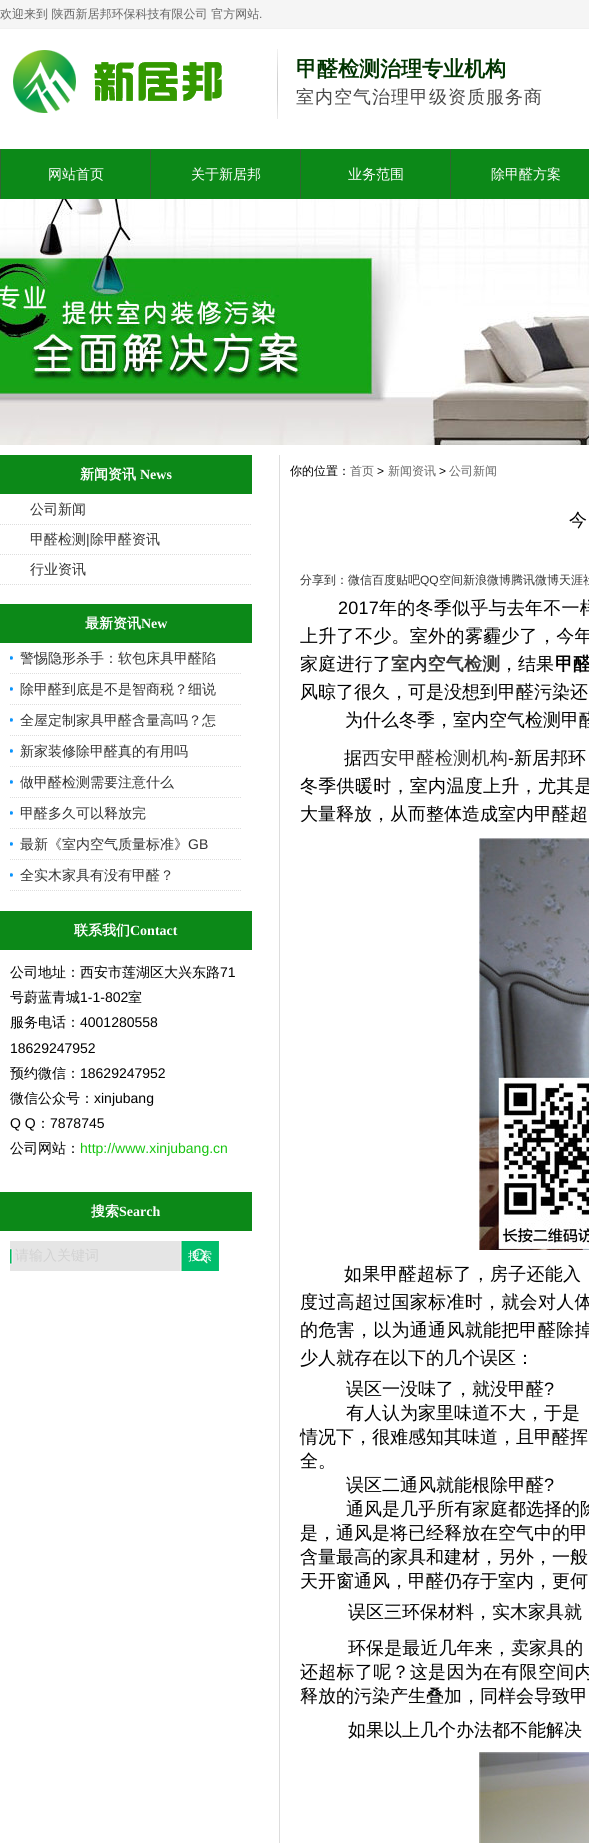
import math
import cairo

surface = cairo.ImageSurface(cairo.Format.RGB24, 589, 1843)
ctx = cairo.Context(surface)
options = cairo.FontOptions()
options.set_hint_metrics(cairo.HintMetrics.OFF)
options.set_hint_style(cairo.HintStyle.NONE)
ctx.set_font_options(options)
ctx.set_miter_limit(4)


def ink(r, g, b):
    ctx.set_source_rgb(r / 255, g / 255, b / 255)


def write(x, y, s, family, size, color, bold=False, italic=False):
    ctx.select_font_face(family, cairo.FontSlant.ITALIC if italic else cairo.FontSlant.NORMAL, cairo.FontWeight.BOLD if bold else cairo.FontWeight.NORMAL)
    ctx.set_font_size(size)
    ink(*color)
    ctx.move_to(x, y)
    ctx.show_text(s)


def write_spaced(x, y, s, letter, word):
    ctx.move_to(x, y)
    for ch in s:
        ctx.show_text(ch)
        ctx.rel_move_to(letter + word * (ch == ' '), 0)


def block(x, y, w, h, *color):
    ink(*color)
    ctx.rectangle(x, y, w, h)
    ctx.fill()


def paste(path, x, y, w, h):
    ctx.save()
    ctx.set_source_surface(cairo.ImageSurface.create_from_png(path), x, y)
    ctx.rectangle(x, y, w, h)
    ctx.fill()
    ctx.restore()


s1 = dict(family="WenQuanYi Zen Hei Medium", size=12, color=(102, 102, 102))
s2 = dict(family="Liberation Sans", size=12, color=(102, 102, 102))
s3 = dict(family="WenQuanYi Zen Hei", size=21, color=(0, 51, 0), bold=True)
s4 = dict(family="WenQuanYi Zen Hei Medium", size=14, color=(255, 255, 255))
s5 = dict(family="WenQuanYi Zen Hei", size=14, color=(255, 255, 255), bold=True)
s6 = dict(family="Liberation Serif", size=14, color=(255, 255, 255), bold=True)
s7 = dict(family="WenQuanYi Zen Hei Medium", size=14, color=(51, 51, 51))
s8 = dict(family="Liberation Sans", size=14, color=(51, 51, 51))
s9 = dict(family="WenQuanYi Zen Hei Medium", size=14, color=(0, 0, 0))
s10 = dict(family="Liberation Sans", size=14, color=(0, 0, 0))
s11 = dict(family="Liberation Sans", size=14, color=(22, 196, 15))
s12 = dict(family="WenQuanYi Zen Hei Medium", size=14, color=(210, 210, 210))
s13 = dict(family="WenQuanYi Zen Hei Medium", size=12, color=(255, 255, 255))
s14 = dict(family="WenQuanYi Zen Hei Medium", size=12, color=(0, 0, 0))
s15 = dict(family="Liberation Sans", size=12, color=(0, 0, 0))
s16 = dict(family="WenQuanYi Zen Hei Medium", size=18, color=(0, 0, 0))
s17 = dict(family="WenQuanYi Zen Hei Medium", size=12, color=(51, 51, 51))
s18 = dict(family="Liberation Sans", size=12, color=(51, 51, 51))
s19 = dict(family="Liberation Sans", size=18, color=(0, 0, 0))

ink(255, 255, 255)
ctx.paint()
block(0, 0, 589, 28, 245, 245, 245)
block(0, 28, 589, 1, 241, 241, 241)
write(0, 18, "欢迎来到 陕西新居邦环保科技有限公司 官方网站", **s1)
write(259, 18, ".", **s2)
paste("pic1.png", 13, 50, 209, 63)
paste("pic2.png", 277, 49, 1, 70)
write(296, 76, "甲醛检测治理专业机构", **s3)
ctx.select_font_face("WenQuanYi Zen Hei Medium")
ctx.set_font_size(18)
ink(72, 72, 72)
write_spaced(296, 103, "室内空气治理甲级资质服务商", 1, 0)
block(1, 149, 588, 50, 12, 137, 24)
block(0, 149, 1, 50, 51, 102, 51)
write(48, 179, "网站首页", **s4)
block(150, 149, 1, 50, 51, 102, 51)
write(191, 179, "关于新居邦", **s4)
block(300, 149, 1, 50, 51, 102, 51)
write(348, 179, "业务范围", **s4)
block(450, 149, 1, 50, 51, 102, 51)
write(491, 179, "除甲醛方案", **s4)
paste("pic3.png", 0, 199, 589, 246)
block(0, 455, 252, 39, 12, 137, 24)
write(80, 479, "新闻资讯", **s5)
write(140, 479, "News", **s6)
ctx.new_path()
ctx.move_to(0, 524.5)
ctx.line_to(252, 524.5)
ink(221, 221, 221)
ctx.set_line_width(1)
ctx.set_dash([1, 1])
ctx.stroke()
write(30, 514, "公司新闻", **s7)
ctx.new_path()
ctx.move_to(0, 554.5)
ctx.line_to(252, 554.5)
ink(221, 221, 221)
ctx.stroke()
write(30, 544, "甲醛检测", **s7)
write(86, 544, "|", **s8)
write(90, 544, "除甲醛资讯", **s7)
ctx.new_path()
ctx.move_to(0, 584.5)
ctx.line_to(252, 584.5)
ink(221, 221, 221)
ctx.stroke()
write(30, 574, "行业资讯", **s7)
block(0, 604, 252, 39, 12, 137, 24)
write(85, 628, "最新资讯", **s5)
write(141, 628, "New", **s6)
paste("pic4.png", 10, 655, 3, 5)
ctx.new_path()
ctx.move_to(10, 673.5)
ctx.line_to(242, 673.5)
ink(221, 221, 221)
ctx.stroke()
write(20, 663, "警惕隐形杀手：软包床具甲醛陷", **s7)
paste("pic4.png", 10, 686, 3, 5)
ctx.new_path()
ctx.move_to(10, 704.5)
ctx.line_to(242, 704.5)
ink(221, 221, 221)
ctx.stroke()
write(20, 694, "除甲醛到底是不是智商税？细说", **s7)
paste("pic4.png", 10, 717, 3, 5)
ctx.new_path()
ctx.move_to(10, 735.5)
ctx.line_to(242, 735.5)
ink(221, 221, 221)
ctx.stroke()
write(20, 725, "全屋定制家具甲醛含量高吗？怎", **s7)
paste("pic4.png", 10, 748, 3, 5)
ctx.new_path()
ctx.move_to(10, 766.5)
ctx.line_to(242, 766.5)
ink(221, 221, 221)
ctx.stroke()
write(20, 756, "新家装修除甲醛真的有用吗", **s7)
paste("pic4.png", 10, 779, 3, 5)
ctx.new_path()
ctx.move_to(10, 797.5)
ctx.line_to(242, 797.5)
ink(221, 221, 221)
ctx.stroke()
write(20, 787, "做甲醛检测需要注意什么", **s7)
paste("pic4.png", 10, 810, 3, 5)
ctx.new_path()
ctx.move_to(10, 828.5)
ctx.line_to(242, 828.5)
ink(221, 221, 221)
ctx.stroke()
write(20, 818, "甲醛多久可以释放完", **s7)
paste("pic4.png", 10, 841, 3, 5)
ctx.new_path()
ctx.move_to(10, 859.5)
ctx.line_to(242, 859.5)
ink(221, 221, 221)
ctx.stroke()
write(20, 849, "最新《室内空气质量标准》", **s7)
write(188, 849, "GB", **s8)
paste("pic4.png", 10, 872, 3, 5)
ctx.new_path()
ctx.move_to(10, 890.5)
ctx.line_to(242, 890.5)
ink(221, 221, 221)
ctx.stroke()
write(20, 880, "全实木家具有没有甲醛？", **s7)
block(0, 911, 252, 39, 12, 137, 24)
write(74, 935, "联系我们", **s5)
write(130, 935, "Contact", **s6)
write(10, 977, "公司地址：西安市莲湖区大兴东路", **s9)
write(220, 977, "71", **s10)
write(10, 1002, "号蔚蓝青城", **s9)
write(80, 1002, "1-1-802", **s10)
write(128, 1002, "室", **s9)
write(10, 1027, "服务电话：", **s9)
write(80, 1027, "4001280558", **s10)
write(10, 1053, "18629247952", **s10)
write(10, 1078, "预约微信：", **s9)
write(80, 1078, "18629247952", **s10)
write(10, 1103, "微信公众号：", **s9)
write(94, 1103, "xinjubang", **s10)
write(10, 1128, "Q Q", **s10)
write(36, 1128, "：", **s9)
write(50, 1128, "7878745", **s10)
write(10, 1153, "公司网站：", **s9)
write(80, 1153, "http://www.xinjubang.cn", **s11)
block(0, 1192, 252, 39, 12, 137, 24)
write(91, 1216, "搜索", **s5)
write(119, 1216, "Search", **s6)
paste("pic5.png", 10, 1241, 209, 30)
write(15, 1260, "请输入关键词", **s12)
write(188, 1260, "搜索", **s13)
block(279, 455, 1, 1388, 221, 221, 221)
write(290, 475, "你的位置：", **s14)
write(350, 475, "首页", **s1)
write(377, 475, ">", **s15)
write(388, 475, "新闻资讯", **s1)
write(439, 475, ">", **s15)
write(449, 475, "公司新闻", **s1)
write(569, 526, "今", **s16)
write(300, 584, "分享到：微信百度贴吧", **s17)
write(420, 584, "QQ", **s18)
write(439, 584, "空间新浪微博腾讯微博天涯社", **s17)
ctx.select_font_face("Liberation Sans")
ctx.set_font_size(18)
ink(0, 0, 0)
write_spaced(338, 614, "2017", 0.25, 0)
ctx.select_font_face("WenQuanYi Zen Hei Medium")
write_spaced(379, 614, "年的冬季似乎与去年不一样", 0.25, 0)
write_spaced(300, 642, "上升了不少。室外的雾霾少了，今年", 0.3, 0)
write_spaced(300, 670, "家庭进行了", 0.25, 0)
ctx.select_font_face("WenQuanYi Zen Hei", cairo.FontSlant.NORMAL, cairo.FontWeight.BOLD)
ink(51, 51, 51)
write_spaced(391, 670, "室内空气检测", 0.25, 0)
write(500, 670, "，结果", **s16)
ctx.select_font_face("WenQuanYi Zen Hei", cairo.FontSlant.NORMAL, cairo.FontWeight.BOLD)
write_spaced(555, 670, "甲醛", 0.25, 0)
write(300, 698, "风晾了很久，可是没想到甲醛污染还", **s16)
write(345, 726, "为什么冬季，室内空气检测甲醛", **s16)
write(344, 764, "据", **s16)
ink(51, 51, 51)
write_spaced(362, 764, "西安甲醛检测机构", 0.25, 0)
write(508, 764, "-", **s19)
write(514, 764, "新居邦环", **s16)
write_spaced(300, 792, "冬季供暖时，室内温度上升，尤其是", 0.3, 0)
write(300, 820, "大量释放，从而整体造成室内甲醛超", **s16)
paste("pic6.png", 479, 838, 110, 412)
write_spaced(344, 1280, "如果甲醛超标了，房子还能入", 0.25, 0)
write_spaced(300, 1308, "度过高超过国家标准时，就会对人体", 0.3, 0)
write_spaced(300, 1336, "的危害，以为通通风就能把甲醛除掉", 0.3, 0)
write(300, 1364, "少人就存在以下的几个误区：", **s16)
write(346, 1395, "误区一没味了，就没甲醛", **s16)
write(544, 1395, "?", **s19)
write(346, 1419, "有人认为家里味道不大，于是", **s16)
write(300, 1443, "情况下，很难感知其味道，且甲醛挥", **s16)
write(300, 1467, "全。", **s16)
write(346, 1491, "误区二通风就能根除甲醛", **s16)
write(544, 1491, "?", **s19)
write(346, 1515, "通风是几乎所有家庭都选择的除", **s16)
write(300, 1539, "是，通风是将已经释放在空气中的甲", **s16)
write(300, 1563, "含量最高的家具和建材，另外，一般", **s16)
write(300, 1587, "天开窗通风，甲醛仍存于室内，更何", **s16)
write(348, 1618, "误区三环保材料，实木家具就", **s16)
write_spaced(348, 1654, "环保是最近几年来，卖家具的", 0.1, 0)
write_spaced(300, 1678, "还超标了呢？这是因为在有限空间内", 0.3, 0)
write(300, 1702, "释放的污染产生叠加，同样会导致甲", **s16)
write(348, 1736, "如果以上几个办法都不能解决", **s16)
paste("pic7.png", 479, 1752, 110, 91)
surface.write_to_png("screenshot.png")
